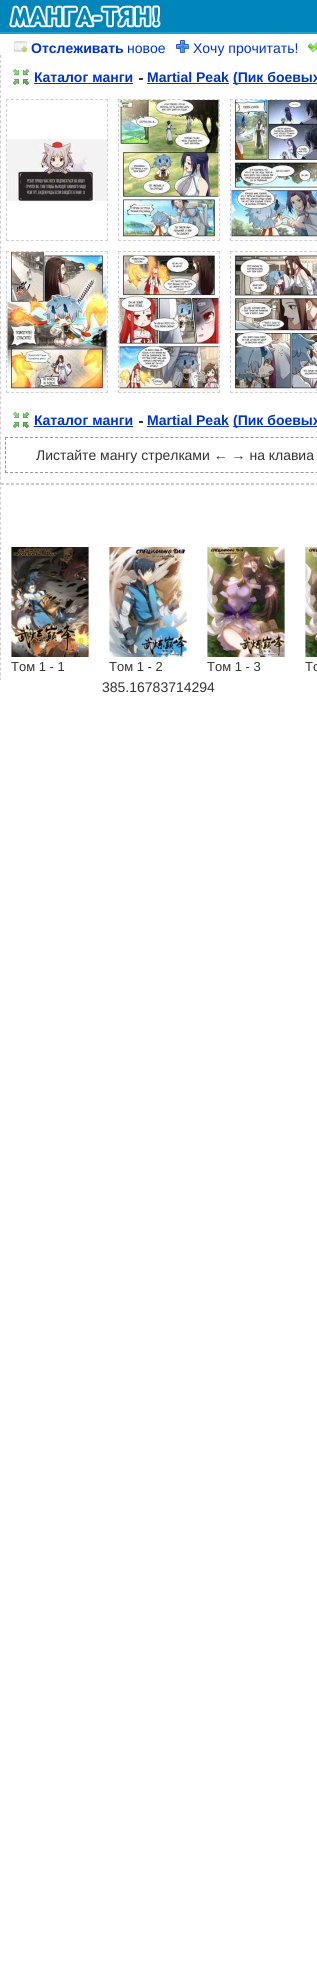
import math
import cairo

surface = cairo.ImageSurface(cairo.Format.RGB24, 317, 1987)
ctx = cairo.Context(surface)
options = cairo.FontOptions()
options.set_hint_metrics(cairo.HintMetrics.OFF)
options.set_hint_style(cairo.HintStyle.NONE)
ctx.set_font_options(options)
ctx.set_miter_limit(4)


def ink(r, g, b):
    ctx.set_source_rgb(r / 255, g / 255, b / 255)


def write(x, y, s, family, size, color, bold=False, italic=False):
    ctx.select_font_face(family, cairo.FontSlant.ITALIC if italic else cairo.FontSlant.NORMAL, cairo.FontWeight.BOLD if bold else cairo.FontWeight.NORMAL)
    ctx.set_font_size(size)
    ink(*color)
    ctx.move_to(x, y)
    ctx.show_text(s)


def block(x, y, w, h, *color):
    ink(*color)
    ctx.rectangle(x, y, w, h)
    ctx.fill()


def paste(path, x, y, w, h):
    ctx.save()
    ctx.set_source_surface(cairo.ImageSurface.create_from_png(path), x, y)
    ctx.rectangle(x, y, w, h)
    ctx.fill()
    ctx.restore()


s1 = dict(family="Liberation Sans", size=14, color=(0, 51, 204), bold=True)
s2 = dict(family="Liberation Sans", size=14, color=(0, 51, 204))
s3 = dict(family="Liberation Sans", size=14, color=(51, 51, 51))
s4 = dict(family="Liberation Sans", size=13, color=(51, 51, 51))

ink(255, 255, 255)
ctx.paint()
block(0, 0, 317, 32, 0, 134, 187)
block(0, 32, 317, 2, 25, 161, 211)
paste("pic1.png", 9, 5, 152, 23)
paste("pic2.png", 14, 41, 13, 12)
write(31, 53, "Отслеживать", **s1)
write(127, 53, "новое", **s2)
paste("pic3.png", 176, 40, 13, 13)
write(193, 53, "Хочу прочитать!", **s2)
paste("pic4.png", 308, 42, 9, 11)
ctx.new_path()
ctx.move_to(0.5, 55)
ctx.line_to(0.5, 680)
ink(207, 207, 207)
ctx.set_line_width(1)
ctx.set_dash([3, 2.02])
ctx.stroke()
paste("pic5.png", 13, 69, 16, 16)
write(34, 82, "Каталог манги", **s1)
block(139, 78, 4, 2, 59, 58, 54)
block(34, 83, 99, 1, 0, 51, 204)
write(147, 82, "Martial Peak", **s1)
block(147, 83, 82, 1, 0, 51, 204)
block(233, 83, 84, 1, 0, 51, 204)
write(233, 82, "(Пик боевых", **s1)
ctx.new_path()
ctx.move_to(6, 99.5)
ctx.line_to(108, 99.5)
ink(207, 207, 207)
ctx.set_dash([3, 1.95])
ctx.stroke()
ctx.new_path()
ctx.move_to(107.5, 99)
ctx.line_to(107.5, 241)
ctx.set_dash([3, 1.96])
ctx.stroke()
ctx.new_path()
ctx.move_to(6, 240.5)
ctx.line_to(108, 240.5)
ctx.set_dash([3, 1.95])
ctx.stroke()
ctx.new_path()
ctx.move_to(6.5, 99)
ctx.line_to(6.5, 241)
ctx.set_dash([3, 1.96])
ctx.stroke()
ctx.new_path()
ctx.move_to(118, 99.5)
ctx.line_to(220, 99.5)
ctx.set_dash([3, 1.95])
ctx.stroke()
ctx.new_path()
ctx.move_to(219.5, 99)
ctx.line_to(219.5, 241)
ctx.set_dash([3, 1.96])
ctx.stroke()
ctx.new_path()
ctx.move_to(118, 240.5)
ctx.line_to(220, 240.5)
ctx.set_dash([3, 1.95])
ctx.stroke()
ctx.new_path()
ctx.move_to(118.5, 99)
ctx.line_to(118.5, 241)
ctx.set_dash([3, 1.96])
ctx.stroke()
ctx.new_path()
ctx.move_to(230, 99.5)
ctx.line_to(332, 99.5)
ctx.set_dash([3, 1.95])
ctx.stroke()
paste("pic6.png", 7, 139, 100, 65)
paste("pic7.png", 119, 100, 100, 140)
ctx.new_path()
ctx.move_to(230, 240.5)
ctx.line_to(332, 240.5)
ctx.stroke()
ctx.new_path()
ctx.move_to(230.5, 99)
ctx.line_to(230.5, 241)
ctx.set_dash([3, 1.96])
ctx.stroke()
paste("pic8.png", 231, 100, 86, 140)
ctx.new_path()
ctx.move_to(6, 251.5)
ctx.line_to(108, 251.5)
ctx.set_dash([3, 1.95])
ctx.stroke()
ctx.new_path()
ctx.move_to(107.5, 251)
ctx.line_to(107.5, 393)
ctx.set_dash([3, 1.96])
ctx.stroke()
ctx.new_path()
ctx.move_to(6, 392.5)
ctx.line_to(108, 392.5)
ctx.set_dash([3, 1.95])
ctx.stroke()
ctx.new_path()
ctx.move_to(6.5, 251)
ctx.line_to(6.5, 393)
ctx.set_dash([3, 1.96])
ctx.stroke()
ctx.new_path()
ctx.move_to(118, 251.5)
ctx.line_to(220, 251.5)
ctx.set_dash([3, 1.95])
ctx.stroke()
ctx.new_path()
ctx.move_to(219.5, 251)
ctx.line_to(219.5, 393)
ctx.set_dash([3, 1.96])
ctx.stroke()
ctx.new_path()
ctx.move_to(118, 392.5)
ctx.line_to(220, 392.5)
ctx.set_dash([3, 1.95])
ctx.stroke()
ctx.new_path()
ctx.move_to(118.5, 251)
ctx.line_to(118.5, 393)
ctx.set_dash([3, 1.96])
ctx.stroke()
ctx.new_path()
ctx.move_to(230, 251.5)
ctx.line_to(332, 251.5)
ctx.set_dash([3, 1.95])
ctx.stroke()
paste("pic9.png", 7, 252, 100, 140)
paste("pic10.png", 119, 252, 100, 140)
ctx.new_path()
ctx.move_to(230, 392.5)
ctx.line_to(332, 392.5)
ctx.stroke()
ctx.new_path()
ctx.move_to(230.5, 251)
ctx.line_to(230.5, 393)
ctx.set_dash([3, 1.96])
ctx.stroke()
paste("pic11.png", 231, 252, 86, 140)
paste("pic5.png", 13, 412, 16, 16)
write(34, 425, "Каталог манги", **s1)
block(139, 421, 4, 2, 59, 58, 54)
block(34, 426, 99, 1, 0, 51, 204)
write(147, 425, "Martial Peak", **s1)
block(147, 426, 82, 1, 0, 51, 204)
block(233, 426, 84, 1, 0, 51, 204)
write(233, 425, "(Пик боевых", **s1)
ctx.new_path()
ctx.move_to(5, 437.5)
ctx.line_to(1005, 437.5)
ink(153, 153, 153)
ctx.set_dash([3, 2.01])
ctx.stroke()
ctx.new_path()
ctx.move_to(5, 472.5)
ctx.line_to(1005, 472.5)
ctx.stroke()
ctx.new_path()
ctx.move_to(5.5, 437)
ctx.line_to(5.5, 473)
ctx.set_dash([3, 1.71])
ctx.stroke()
write(36, 460, "Листайте мангу стрелками ← → на клавиа", **s3)
ctx.new_path()
ctx.move_to(1, 483.5)
ctx.line_to(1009, 483.5)
ink(204, 204, 204)
ctx.set_dash([3, 2])
ctx.stroke()
ctx.new_path()
ctx.move_to(1, 484.5)
ctx.line_to(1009, 484.5)
ctx.stroke()
paste("pic12.png", 11, 547, 78, 110)
write(11, 671, "Том 1 - 1", **s4)
paste("pic13.png", 109, 547, 78, 110)
write(109, 671, "Том 1 - 2", **s4)
paste("pic14.png", 207, 547, 78, 110)
write(207, 671, "Том 1 - 3", **s4)
paste("pic15.png", 305, 547, 12, 110)
write(305, 671, "То", **s4)
write(102, 692, "385.16783714294", **s3)
surface.write_to_png("screenshot.png")
